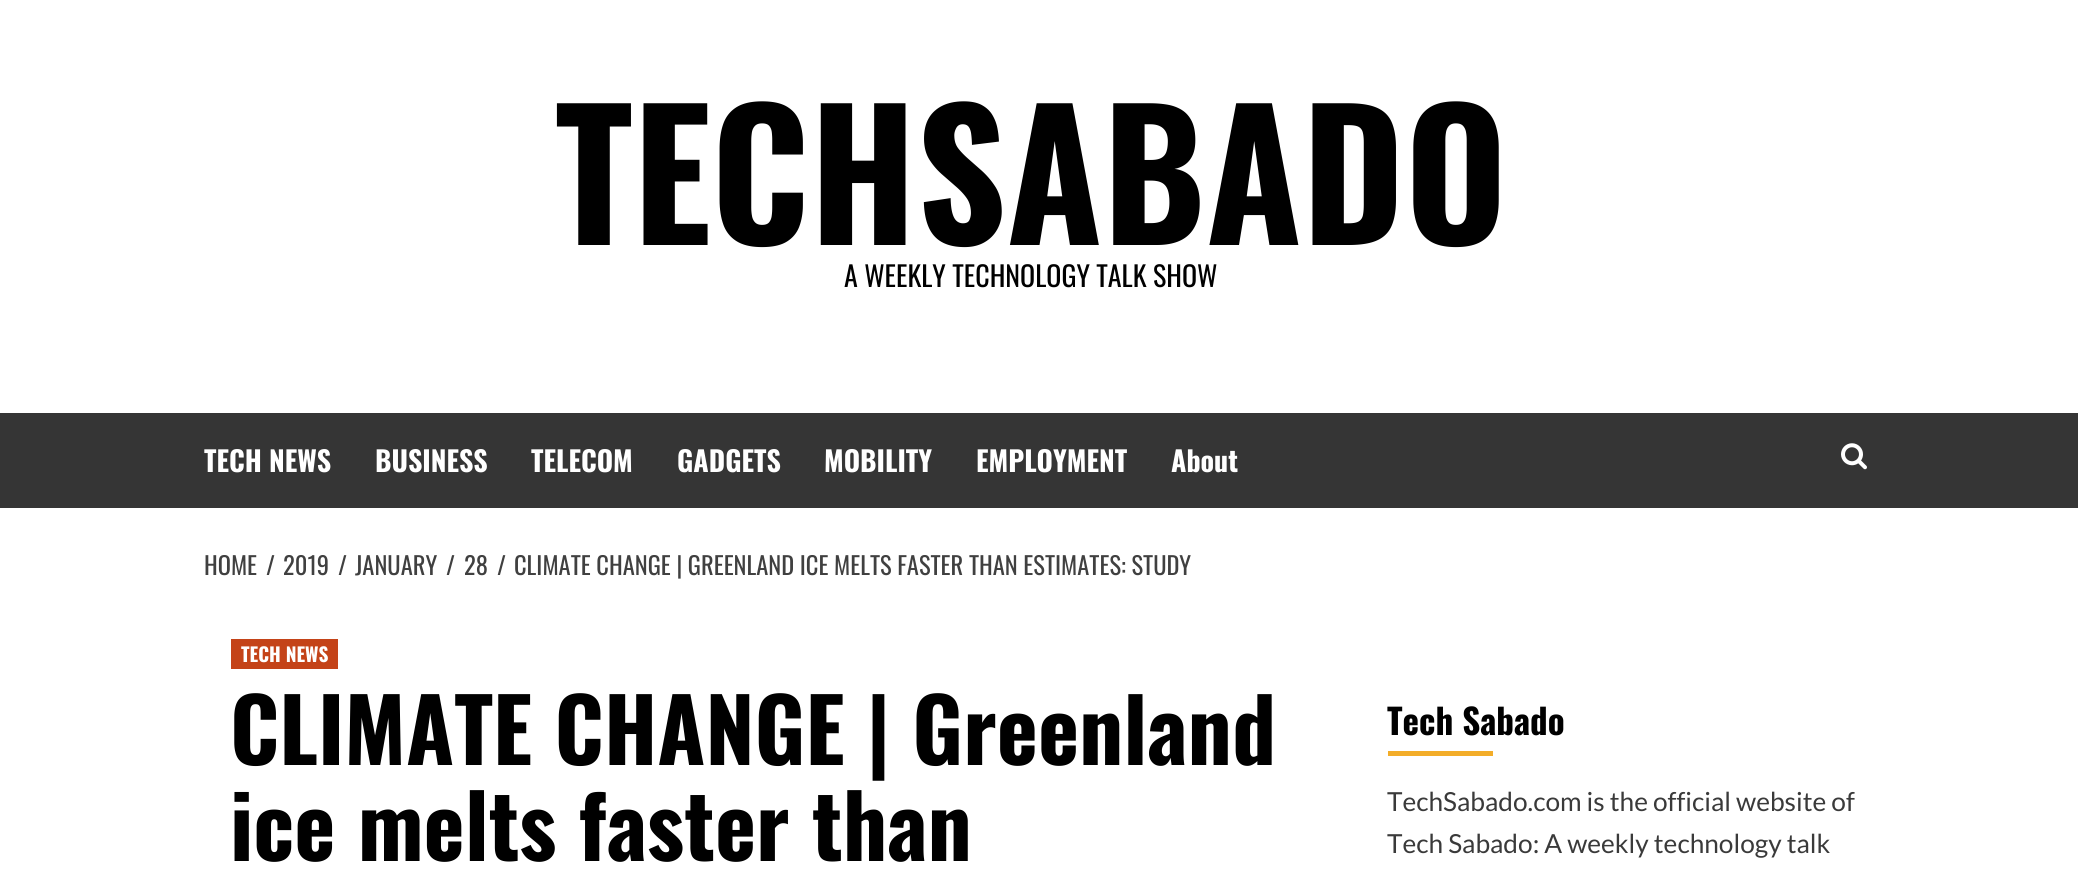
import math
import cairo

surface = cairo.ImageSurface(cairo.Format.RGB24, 2078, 883)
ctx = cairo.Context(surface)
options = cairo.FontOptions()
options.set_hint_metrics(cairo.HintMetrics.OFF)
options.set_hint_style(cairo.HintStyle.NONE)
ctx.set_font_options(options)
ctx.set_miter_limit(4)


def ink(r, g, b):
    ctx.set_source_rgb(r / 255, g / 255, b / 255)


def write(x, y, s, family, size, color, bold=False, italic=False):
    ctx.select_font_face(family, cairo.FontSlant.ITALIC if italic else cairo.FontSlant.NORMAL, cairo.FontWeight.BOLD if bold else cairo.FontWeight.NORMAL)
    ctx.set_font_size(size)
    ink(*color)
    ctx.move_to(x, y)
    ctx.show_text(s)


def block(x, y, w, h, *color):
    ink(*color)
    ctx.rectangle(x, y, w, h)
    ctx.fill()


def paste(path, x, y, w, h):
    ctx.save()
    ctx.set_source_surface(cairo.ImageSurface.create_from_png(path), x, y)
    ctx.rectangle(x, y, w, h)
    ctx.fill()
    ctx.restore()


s1 = dict(family="Oswald", size=175, color=(0, 0, 0), bold=True)
s2 = dict(family="Oswald", size=28, color=(0, 0, 0))
s3 = dict(family="Oswald", size=28, color=(255, 255, 255), bold=True)
s4 = dict(family="Oswald", size=24.5, color=(64, 64, 64))
s5 = dict(family="Oswald", size=19.25, color=(255, 255, 255), bold=True)
s6 = dict(family="Oswald", size=87.5, color=(0, 0, 0), bold=True)
s7 = dict(family="Oswald", size=35, color=(0, 0, 0), bold=True)
s8 = dict(family="Lato", size=26.25, color=(58, 58, 58))

ink(255, 255, 255)
ctx.paint()
write(555, 245, "TECHSABADO", **s1)
write(844, 287, "A WEEKLY TECHNOLOGY TALK SHOW", **s2)
block(0, 413, 2078, 95, 53, 53, 53)
write(204, 472, "TECH NEWS", **s3)
write(375, 472, "BUSINESS", **s3)
write(531, 472, "TELECOM", **s3)
write(677, 472, "GADGETS", **s3)
write(824, 472, "MOBILITY", **s3)
write(976, 472, "EMPLOYMENT", **s3)
write(1171, 472, "About", **s3)
paste("pic1.png", 1841, 443, 26, 27)
write(204, 575, "HOME", **s4)
write(266, 575, "/", **s4)
write(283, 575, "2019", **s4)
write(338, 575, "/", **s4)
write(355, 575, "JANUARY", **s4)
write(446, 575, "/", **s4)
write(464, 575, "28", **s4)
write(497, 575, "/", **s4)
write(514, 575, "CLIMATE CHANGE | GREENLAND ICE MELTS FASTER THAN ESTIMATES: STUDY", **s4)
block(231, 639, 107, 30, 196, 67, 24)
write(241, 662, "TECH NEWS", **s5)
write(230, 765, "CLIMATE CHANGE | Greenland", **s6)
write(230, 861, "ice melts faster than", **s6)
write(1387, 735, "Tech Sabado", **s7)
block(1388, 751, 105, 5, 243, 173, 41)
write(1387, 811, "TechSabado.com is the official website of", **s8)
write(1387, 853, "Tech Sabado: A weekly technology talk", **s8)
surface.write_to_png("screenshot.png")
